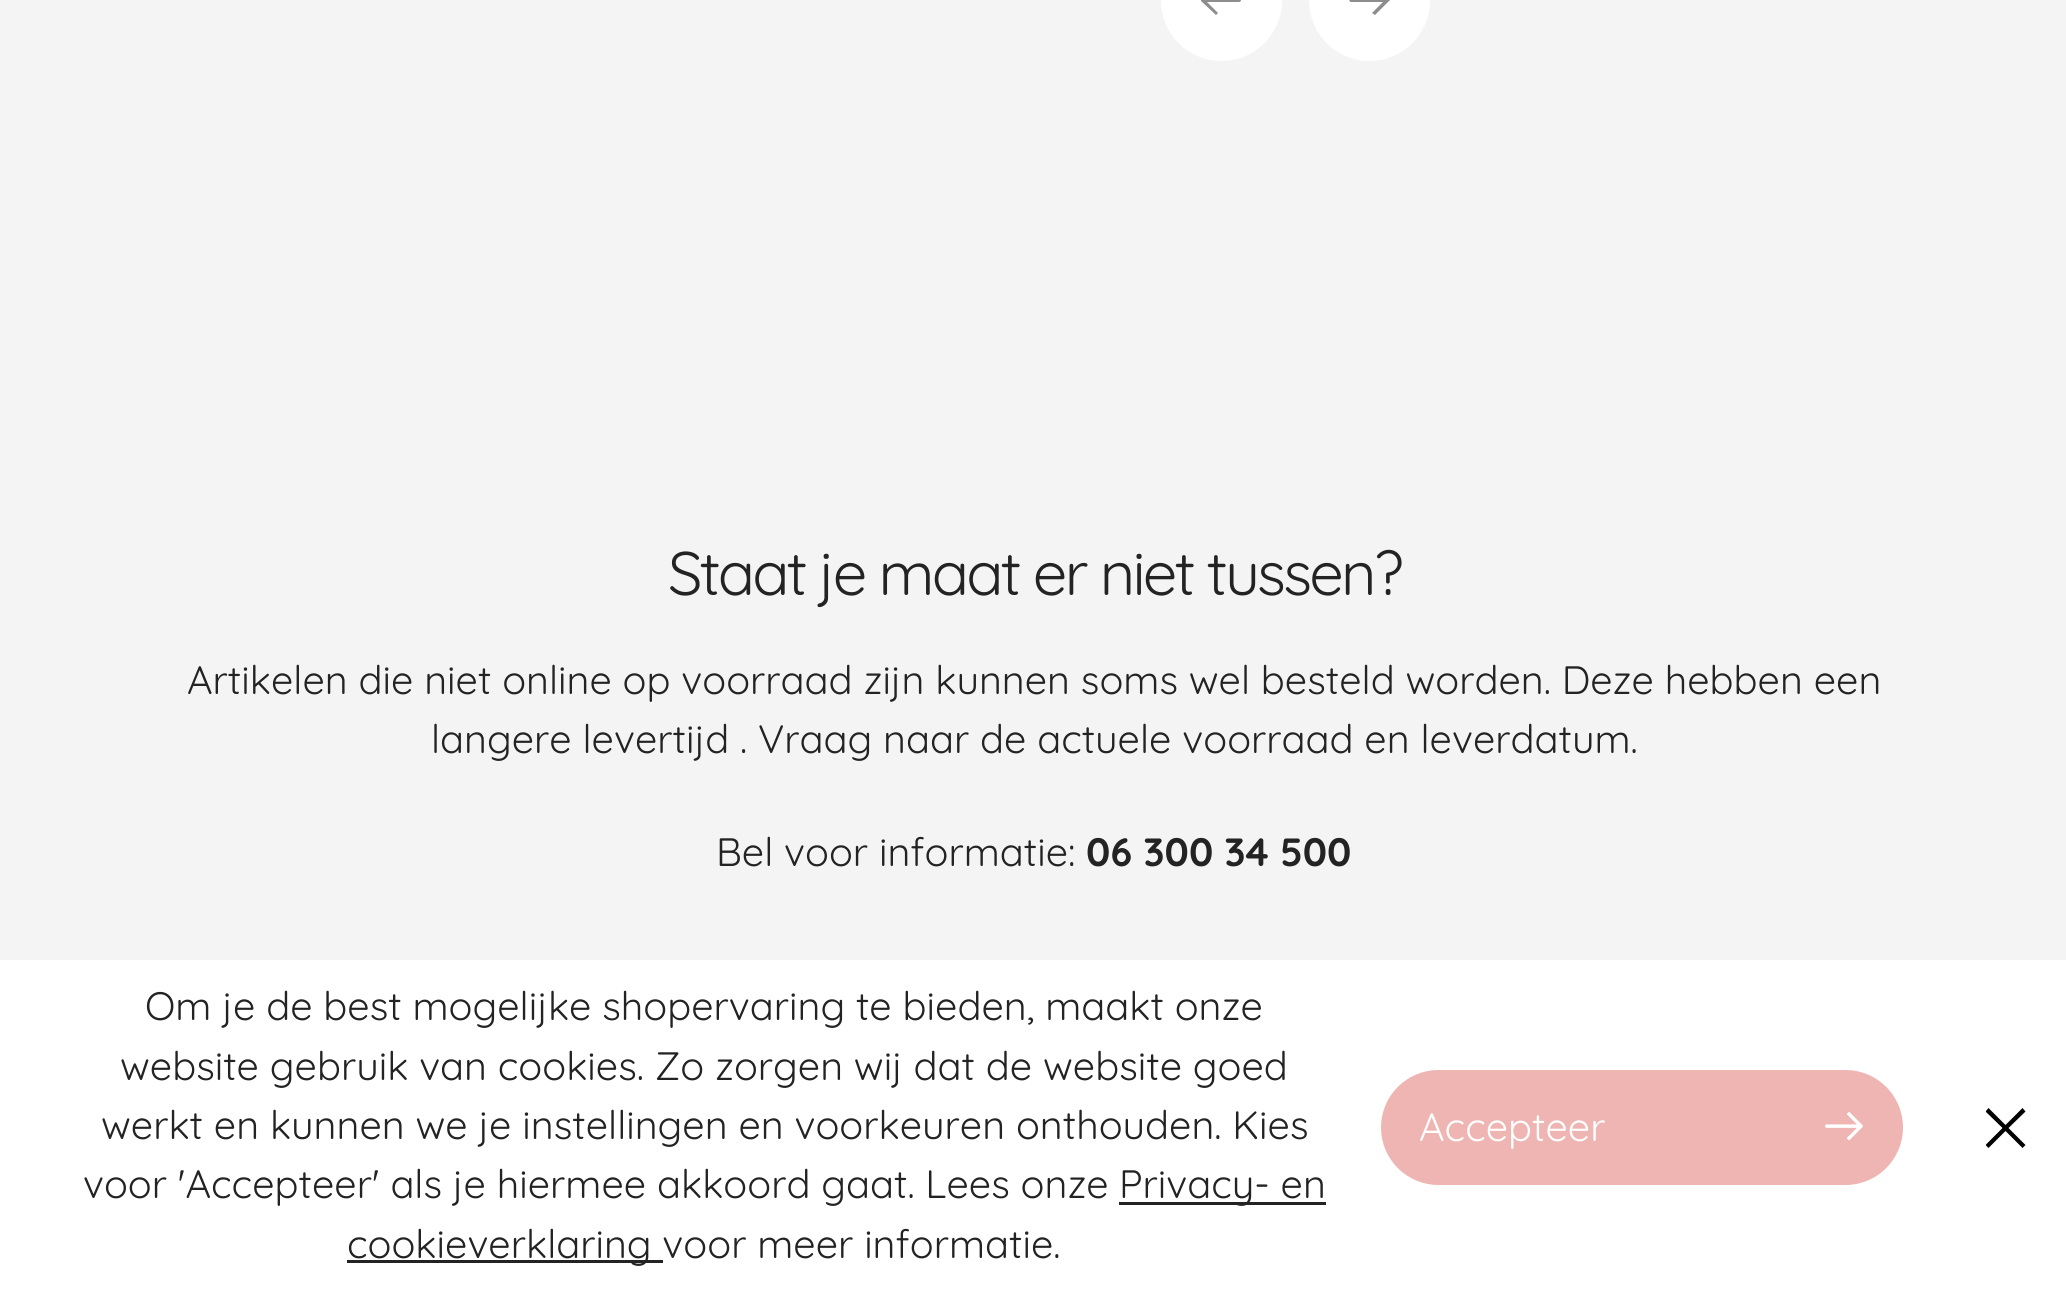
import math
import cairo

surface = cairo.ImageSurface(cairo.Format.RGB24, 2066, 1293)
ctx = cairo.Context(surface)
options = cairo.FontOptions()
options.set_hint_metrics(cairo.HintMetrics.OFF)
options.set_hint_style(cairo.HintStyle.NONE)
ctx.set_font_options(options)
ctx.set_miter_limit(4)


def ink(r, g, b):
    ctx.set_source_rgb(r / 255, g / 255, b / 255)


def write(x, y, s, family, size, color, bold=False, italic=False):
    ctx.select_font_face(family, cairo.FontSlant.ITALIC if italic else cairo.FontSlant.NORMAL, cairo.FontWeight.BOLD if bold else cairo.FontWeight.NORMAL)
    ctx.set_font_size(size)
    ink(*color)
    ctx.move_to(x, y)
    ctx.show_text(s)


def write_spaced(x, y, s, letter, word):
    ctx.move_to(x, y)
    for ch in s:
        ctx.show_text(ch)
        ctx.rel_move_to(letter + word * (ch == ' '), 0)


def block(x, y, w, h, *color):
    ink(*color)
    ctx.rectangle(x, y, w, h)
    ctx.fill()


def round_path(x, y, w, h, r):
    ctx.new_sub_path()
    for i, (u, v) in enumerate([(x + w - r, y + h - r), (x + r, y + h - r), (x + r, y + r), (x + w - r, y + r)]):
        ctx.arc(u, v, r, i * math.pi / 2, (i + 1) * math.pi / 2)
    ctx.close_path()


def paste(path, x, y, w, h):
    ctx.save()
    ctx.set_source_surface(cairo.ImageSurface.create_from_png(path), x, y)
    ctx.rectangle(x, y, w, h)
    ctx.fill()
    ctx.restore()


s1 = dict(family="Quicksand Light", size=39.6, color=(35, 35, 35))
s2 = dict(family="Quicksand", size=39.6, color=(35, 35, 35), bold=True)
s3 = dict(family="Quicksand Light", size=39.6, color=(255, 255, 255))

ink(244, 244, 244)
ctx.paint()
ink(255, 255, 255)
ctx.arc(1221.5, 0.5, 60.5, 0, 2 * math.pi)
ctx.fill()
ink(141, 141, 141)
ctx.new_path()
ctx.move_to(1201, -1)
ctx.line_to(1216, -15)
ctx.line_to(1218, -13)
ctx.line_to(1207, -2)
ctx.line_to(1240, -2)
ctx.curve_to(1242, -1, 1241, 2, 1239, 2)
ctx.line_to(1207, 2)
ctx.line_to(1218, 13)
ctx.line_to(1216, 15)
ctx.line_to(1201, 1)
ctx.curve_to(1201, 1, 1201, -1, 1201, -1)
ctx.close_path()
ctx.fill()
ink(255, 255, 255)
ctx.arc(1369.5, 0.5, 60.5, 0, 2 * math.pi)
ctx.fill()
ink(141, 141, 141)
ctx.new_path()
ctx.move_to(1389, -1)
ctx.line_to(1375, -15)
ctx.line_to(1372, -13)
ctx.line_to(1383, -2)
ctx.line_to(1350, -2)
ctx.curve_to(1349, -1, 1349, 2, 1351, 2)
ctx.line_to(1383, 2)
ctx.line_to(1372, 13)
ctx.line_to(1375, 15)
ctx.line_to(1389, 1)
ctx.curve_to(1390, 1, 1390, -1, 1389, -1)
ctx.close_path()
ctx.fill()
ctx.select_font_face("Quicksand Light")
ctx.set_font_size(61.4)
ink(35, 35, 35)
write_spaced(668, 595, "Staat je maat er niet tussen?", -2.75, 0)
write(187, 694, "Artikelen die niet online op voorraad zijn kunnen soms wel besteld worden. Deze hebben een", **s1)
write(431, 753, "langere levertijd . Vraag naar de actuele voorraad en leverdatum.", **s1)
write(716, 866, "Bel voor informatie:", **s1)
write(1086, 866, "06 300 34 500", **s2)
block(0, 960, 2066, 333, 255, 255, 255)
write(145, 1020, "Om je de best mogelijke shopervaring te bieden, maakt onze", **s1)
write(120, 1080, "website gebruik van cookies. Zo zorgen wij dat de website goed", **s1)
write(101, 1139, "werkt en kunnen we je instellingen en voorkeuren onthouden. Kies", **s1)
write(83, 1198, "voor 'Accepteer' als je hiermee akkoord gaat. Lees onze", **s1)
block(1119, 1202, 207, 3, 35, 35, 35)
write(1119, 1198, "Privacy- en", **s1)
block(347, 1260, 316, 3, 35, 35, 35)
write(347, 1258, "cookieverklaring voor meer informatie.", **s1)
ink(238, 181, 178)
round_path(1381, 1070, 522, 115, 57.5)
ctx.fill()
write(1419, 1141, "Accepteer", **s3)
paste("pic1.png", 1825, 1111, 38, 30)
ctx.save()
ctx.rectangle(1986, 1108, 41, 42)
ctx.clip()
ink(0, 0, 0)
ctx.set_fill_rule(cairo.FillRule.EVEN_ODD)
ctx.new_path()
ctx.move_to(2005.5, 1125)
ctx.line_to(2022.5, 1108)
ctx.line_to(2025.5, 1111.5)
ctx.line_to(2008.5, 1128)
ctx.line_to(2025.5, 1145)
ctx.line_to(2022.5, 1148)
ctx.line_to(2005.5, 1131)
ctx.line_to(1988.5, 1148)
ctx.line_to(1985.5, 1145)
ctx.line_to(2002.5, 1128)
ctx.line_to(1985.5, 1111.5)
ctx.line_to(1988.5, 1108)
ctx.close_path()
ctx.fill()
ctx.restore()
surface.write_to_png("screenshot.png")
